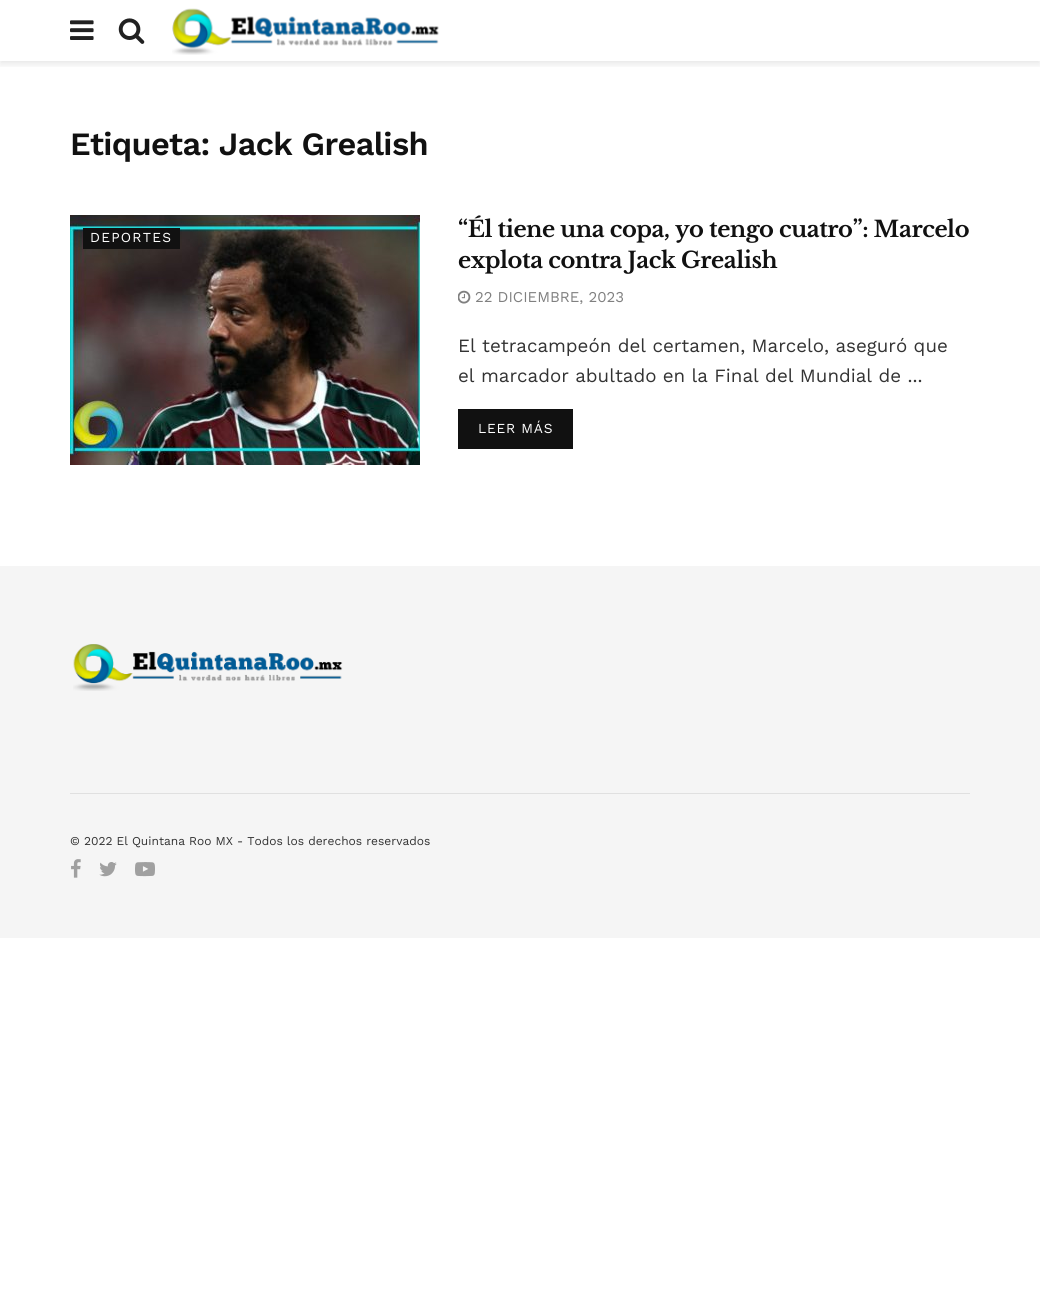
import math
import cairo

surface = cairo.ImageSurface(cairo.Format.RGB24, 1040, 1300)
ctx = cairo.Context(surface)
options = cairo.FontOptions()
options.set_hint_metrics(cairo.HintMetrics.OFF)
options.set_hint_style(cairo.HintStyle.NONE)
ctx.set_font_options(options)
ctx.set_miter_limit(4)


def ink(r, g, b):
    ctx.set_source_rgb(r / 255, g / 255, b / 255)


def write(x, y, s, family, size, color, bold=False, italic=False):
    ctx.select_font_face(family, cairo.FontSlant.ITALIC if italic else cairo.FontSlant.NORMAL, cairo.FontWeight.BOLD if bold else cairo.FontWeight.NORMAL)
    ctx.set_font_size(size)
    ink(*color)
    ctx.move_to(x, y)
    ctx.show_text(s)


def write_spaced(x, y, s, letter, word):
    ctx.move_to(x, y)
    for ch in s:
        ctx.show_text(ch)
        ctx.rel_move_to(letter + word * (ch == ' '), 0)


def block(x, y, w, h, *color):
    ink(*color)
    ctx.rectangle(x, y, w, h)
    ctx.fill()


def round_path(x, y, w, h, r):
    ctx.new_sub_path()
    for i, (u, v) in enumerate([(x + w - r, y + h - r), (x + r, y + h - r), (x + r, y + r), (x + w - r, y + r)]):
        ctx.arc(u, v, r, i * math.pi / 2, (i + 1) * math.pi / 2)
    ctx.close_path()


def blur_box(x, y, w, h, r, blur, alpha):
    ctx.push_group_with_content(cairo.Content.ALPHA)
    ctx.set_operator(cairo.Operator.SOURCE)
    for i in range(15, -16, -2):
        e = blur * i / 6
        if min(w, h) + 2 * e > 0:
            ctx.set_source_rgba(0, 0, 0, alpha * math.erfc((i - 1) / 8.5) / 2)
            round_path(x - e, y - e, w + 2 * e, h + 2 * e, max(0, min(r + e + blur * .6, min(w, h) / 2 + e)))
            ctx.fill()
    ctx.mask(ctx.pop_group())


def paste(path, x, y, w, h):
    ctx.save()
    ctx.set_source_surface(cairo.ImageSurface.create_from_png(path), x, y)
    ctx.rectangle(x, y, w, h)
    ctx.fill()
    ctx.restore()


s1 = dict(family="Work Sans", size=15, color=(128, 128, 128))
s2 = dict(family="Work Sans", size=18.75, color=(51, 51, 51))
s3 = dict(family="Work Sans", size=12, color=(51, 51, 51))

ink(255, 255, 255)
ctx.paint()
ctx.save()
ctx.rectangle(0, 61, 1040, 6)
ctx.clip()
ink(0, 0, 0)
blur_box(0, 3, 1040, 61, 0, 4, 0.1)
ctx.restore()
paste("pic1.png", 70, 20, 24, 20)
paste("pic2.png", 118, 18, 27, 26)
paste("pic3.png", 172, 8, 267, 47)
ctx.select_font_face("Work Sans SemiBold")
ctx.set_font_size(32.5)
ink(17, 17, 17)
write_spaced(70, 155, "Etiqueta: Jack Grealish", -0.65, 0)
paste("pic4.png", 70, 215, 350, 250)
block(83, 228, 97, 21, 17, 17, 17)
ctx.select_font_face("Work Sans")
ctx.set_font_size(13.75)
ink(255, 255, 255)
write_spaced(90, 242, "DEPORTES", 1.25, 0)
ctx.select_font_face("Libre Baskerville", cairo.FontSlant.NORMAL, cairo.FontWeight.BOLD)
ctx.set_font_size(22.5)
ink(17, 17, 17)
write_spaced(458, 237, "“Él tiene una copa, yo tengo cuatro”: Marcelo", -0.45, 0)
write_spaced(458, 268, "explota contra Jack Grealish", -0.45, 0)
paste("pic5.png", 458, 290, 13, 14)
write(475, 302, "22 DICIEMBRE, 2023", **s1)
write(458, 352, "El tetracampeón del certamen, Marcelo, aseguró que", **s2)
write(458, 382, "el marcador abultado en la Final del Mundial de ...", **s2)
block(458, 409, 115, 40, 17, 17, 17)
ctx.set_font_size(13.75)
ink(255, 255, 255)
write_spaced(478, 433, "LEER MÁS", 0.75, 0)
block(0, 566, 1040, 372, 245, 245, 245)
paste("pic6.png", 73, 644, 270, 47)
block(70, 793, 900, 1, 224, 224, 224)
write(70, 845, "© 2022 El Quintana Roo MX - Todos los derechos reservados", **s3)
paste("pic7.png", 71, 859, 10, 19)
paste("pic8.png", 99, 862, 18, 15)
paste("pic9.png", 135, 862, 20, 15)
surface.write_to_png("screenshot.png")
